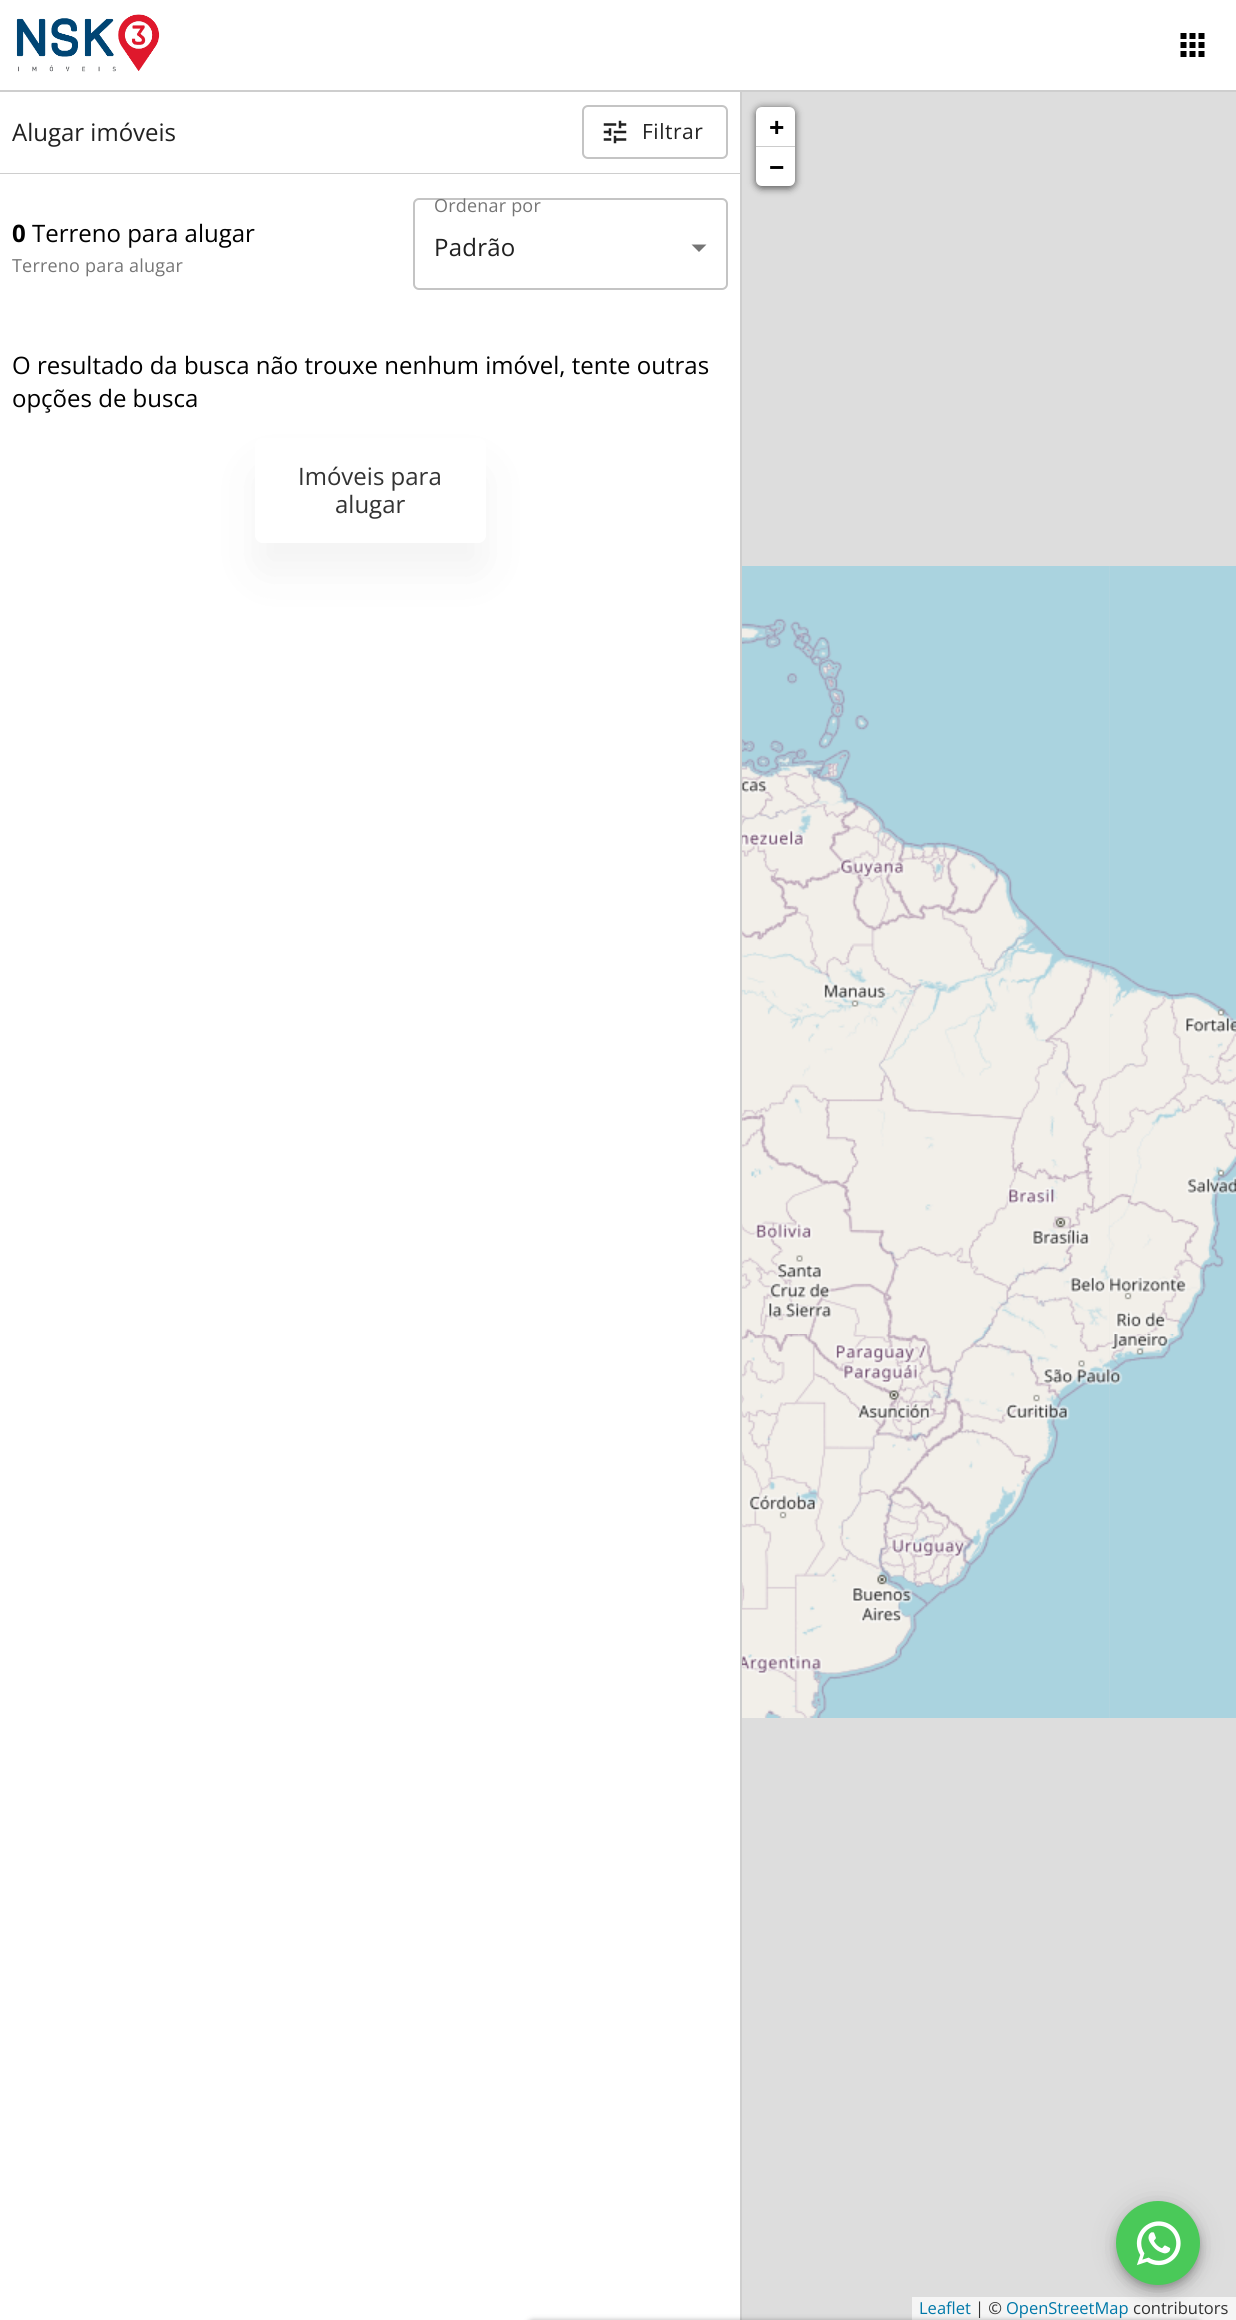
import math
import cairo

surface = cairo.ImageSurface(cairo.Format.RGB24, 1236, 2320)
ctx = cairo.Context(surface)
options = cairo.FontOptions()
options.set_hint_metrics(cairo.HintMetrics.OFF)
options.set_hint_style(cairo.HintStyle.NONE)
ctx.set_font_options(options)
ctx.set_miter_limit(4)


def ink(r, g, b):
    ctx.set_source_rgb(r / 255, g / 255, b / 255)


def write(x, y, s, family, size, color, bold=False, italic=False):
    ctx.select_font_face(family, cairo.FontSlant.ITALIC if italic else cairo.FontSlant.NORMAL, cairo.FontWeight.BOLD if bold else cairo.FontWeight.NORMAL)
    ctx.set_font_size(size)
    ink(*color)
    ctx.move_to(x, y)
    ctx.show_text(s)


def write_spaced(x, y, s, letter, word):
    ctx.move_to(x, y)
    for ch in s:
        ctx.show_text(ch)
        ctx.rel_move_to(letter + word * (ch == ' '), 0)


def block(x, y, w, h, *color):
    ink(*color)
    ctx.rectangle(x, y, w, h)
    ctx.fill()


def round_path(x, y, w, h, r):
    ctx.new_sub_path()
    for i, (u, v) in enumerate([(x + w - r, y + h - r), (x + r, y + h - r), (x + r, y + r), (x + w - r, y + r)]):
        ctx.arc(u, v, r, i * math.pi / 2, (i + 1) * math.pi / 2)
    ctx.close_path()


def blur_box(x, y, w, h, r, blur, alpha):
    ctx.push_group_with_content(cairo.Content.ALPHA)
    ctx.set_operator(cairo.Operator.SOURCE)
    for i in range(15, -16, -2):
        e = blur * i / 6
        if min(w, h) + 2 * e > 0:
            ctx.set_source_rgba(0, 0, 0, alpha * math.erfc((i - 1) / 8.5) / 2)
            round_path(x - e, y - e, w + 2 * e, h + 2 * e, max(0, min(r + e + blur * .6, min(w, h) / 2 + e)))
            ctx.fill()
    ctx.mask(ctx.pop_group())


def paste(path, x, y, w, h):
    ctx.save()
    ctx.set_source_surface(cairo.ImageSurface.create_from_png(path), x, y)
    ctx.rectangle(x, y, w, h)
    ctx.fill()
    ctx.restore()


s1 = dict(family="Open Sans", size=24, color=(33, 33, 33))
s2 = dict(family="Open Sans", size=24, color=(0, 0, 0), bold=True)
s3 = dict(family="Open Sans", size=24, color=(0, 0, 0))
s4 = dict(family="Open Sans", size=24, color=(51, 51, 51))
s5 = dict(family="Open Sans", size=27, color=(0, 0, 0), bold=True)
s6 = dict(family="Open Sans", size=16.5, color=(0, 120, 168))
s7 = dict(family="Open Sans", size=16.5, color=(51, 51, 51))

ink(255, 255, 255)
ctx.paint()
paste("pic1.png", 16, 14, 144, 58)
paste("pic2.png", 1180, 33, 25, 24)
block(0, 90, 1236, 2, 206, 206, 206)
block(740, 92, 2, 2228, 206, 206, 206)
block(0, 173, 740, 1, 206, 206, 206)
write(12, 141, "Alugar imóveis", **s1)
round_path(583, 106, 144, 52, 5)
ink(196, 196, 196)
ctx.stroke()
paste("pic3.png", 603, 120, 24, 24)
ctx.set_font_size(21)
ink(33, 33, 33)
write_spaced(642, 139, "Filtrar", 0.5, 0)
write(12, 242, "0", **s2)
write(32, 242, "Terreno para alugar", **s3)
ctx.set_font_size(18)
ink(117, 117, 117)
write_spaced(12, 272, "Terreno para alugar", 0.2, 0)
ctx.new_path()
ctx.move_to(691.5, 244.5)
ctx.line_to(699, 252)
ctx.line_to(706.5, 244.5)
ctx.close_path()
ctx.fill()
round_path(414, 199, 313, 90, 5)
ink(196, 196, 196)
ctx.stroke()
ink(117, 117, 117)
write_spaced(434, 212, "Ordenar por", 0.2, 0)
ctx.set_font_size(24)
ink(33, 33, 33)
write_spaced(434, 256, "Padrão", 0.25, 0)
write(12, 374, "O resultado da busca não trouxe nenhum imóvel, tente outras", **s3)
write(12, 407, "opções de busca", **s3)
ctx.save()
ctx.set_fill_rule(cairo.FillRule.EVEN_ODD)
ctx.new_path()
ctx.move_to(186, 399)
ctx.line_to(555, 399)
ctx.line_to(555, 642)
ctx.line_to(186, 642)
ctx.close_path()
ctx.move_to(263, 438)
ctx.line_to(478, 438)
ctx.curve_to(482.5, 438, 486, 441.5, 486, 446)
ctx.line_to(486, 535)
ctx.curve_to(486, 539.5, 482.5, 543, 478, 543)
ctx.line_to(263, 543)
ctx.curve_to(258.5, 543, 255, 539.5, 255, 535)
ctx.line_to(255, 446)
ctx.curve_to(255, 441.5, 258.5, 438, 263, 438)
ctx.close_path()
ctx.clip()
ink(51, 51, 51)
blur_box(255, 468, 231, 105, 8, 22.5, 0.06)
ctx.restore()
write(298, 485, "Imóveis para", **s4)
write(335, 513, "alugar", **s4)
block(742, 92, 494, 2228, 221, 221, 221)
ink(0, 0, 0)
blur_box(756, 108, 39, 80, 6, 4, 0.65)
ink(255, 255, 255)
ctx.new_path()
ctx.move_to(762, 107)
ctx.line_to(789, 107)
ctx.curve_to(792.5, 107, 795, 109.5, 795, 113)
ctx.line_to(795, 147)
ctx.line_to(756, 147)
ctx.line_to(756, 113)
ctx.curve_to(756, 109.5, 758.5, 107, 762, 107)
ctx.close_path()
ctx.fill()
block(756, 146, 39, 1, 204, 204, 204)
write(769, 137, "+", **s5)
ink(255, 255, 255)
ctx.new_path()
ctx.move_to(756, 147)
ctx.line_to(795, 147)
ctx.line_to(795, 180)
ctx.curve_to(795, 183.5, 792.5, 186, 789, 186)
ctx.line_to(762, 186)
ctx.curve_to(758.5, 186, 756, 183.5, 756, 180)
ctx.close_path()
ctx.fill()
write(769, 177, "−", **s5)
block(912, 2297, 324, 23, 245, 245, 245)
write(919, 2314, "Leaflet", **s6)
write(975, 2314, "| ©", **s7)
write(1006, 2314, "OpenStreetMap", **s6)
write(1133, 2314, "contributors", **s7)
paste("pic4.png", 742, 566, 368, 384)
block(1110, 566, 126, 384, 170, 211, 223)
paste("pic5.png", 742, 950, 368, 384)
paste("pic6.png", 1110, 950, 126, 384)
paste("pic7.png", 742, 1334, 368, 384)
paste("pic8.png", 1110, 1334, 126, 384)
ink(0, 0, 0)
blur_box(1116, 2202, 84, 84, 42, 13.5, 0.12)
blur_box(1116, 2210, 84, 84, 42, 7.5, 0.14)
blur_box(1118, 2207, 81, 81, 40.5, 4, 0.2)
ink(74, 201, 89)
ctx.arc(1158, 2243, 42, 0, 2 * math.pi)
ctx.fill()
paste("pic9.png", 1136, 2221, 45, 45)
ink(0, 0, 0)
blur_box(527, 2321, 675, 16, 8, 3, 0.4)
surface.write_to_png("screenshot.png")
